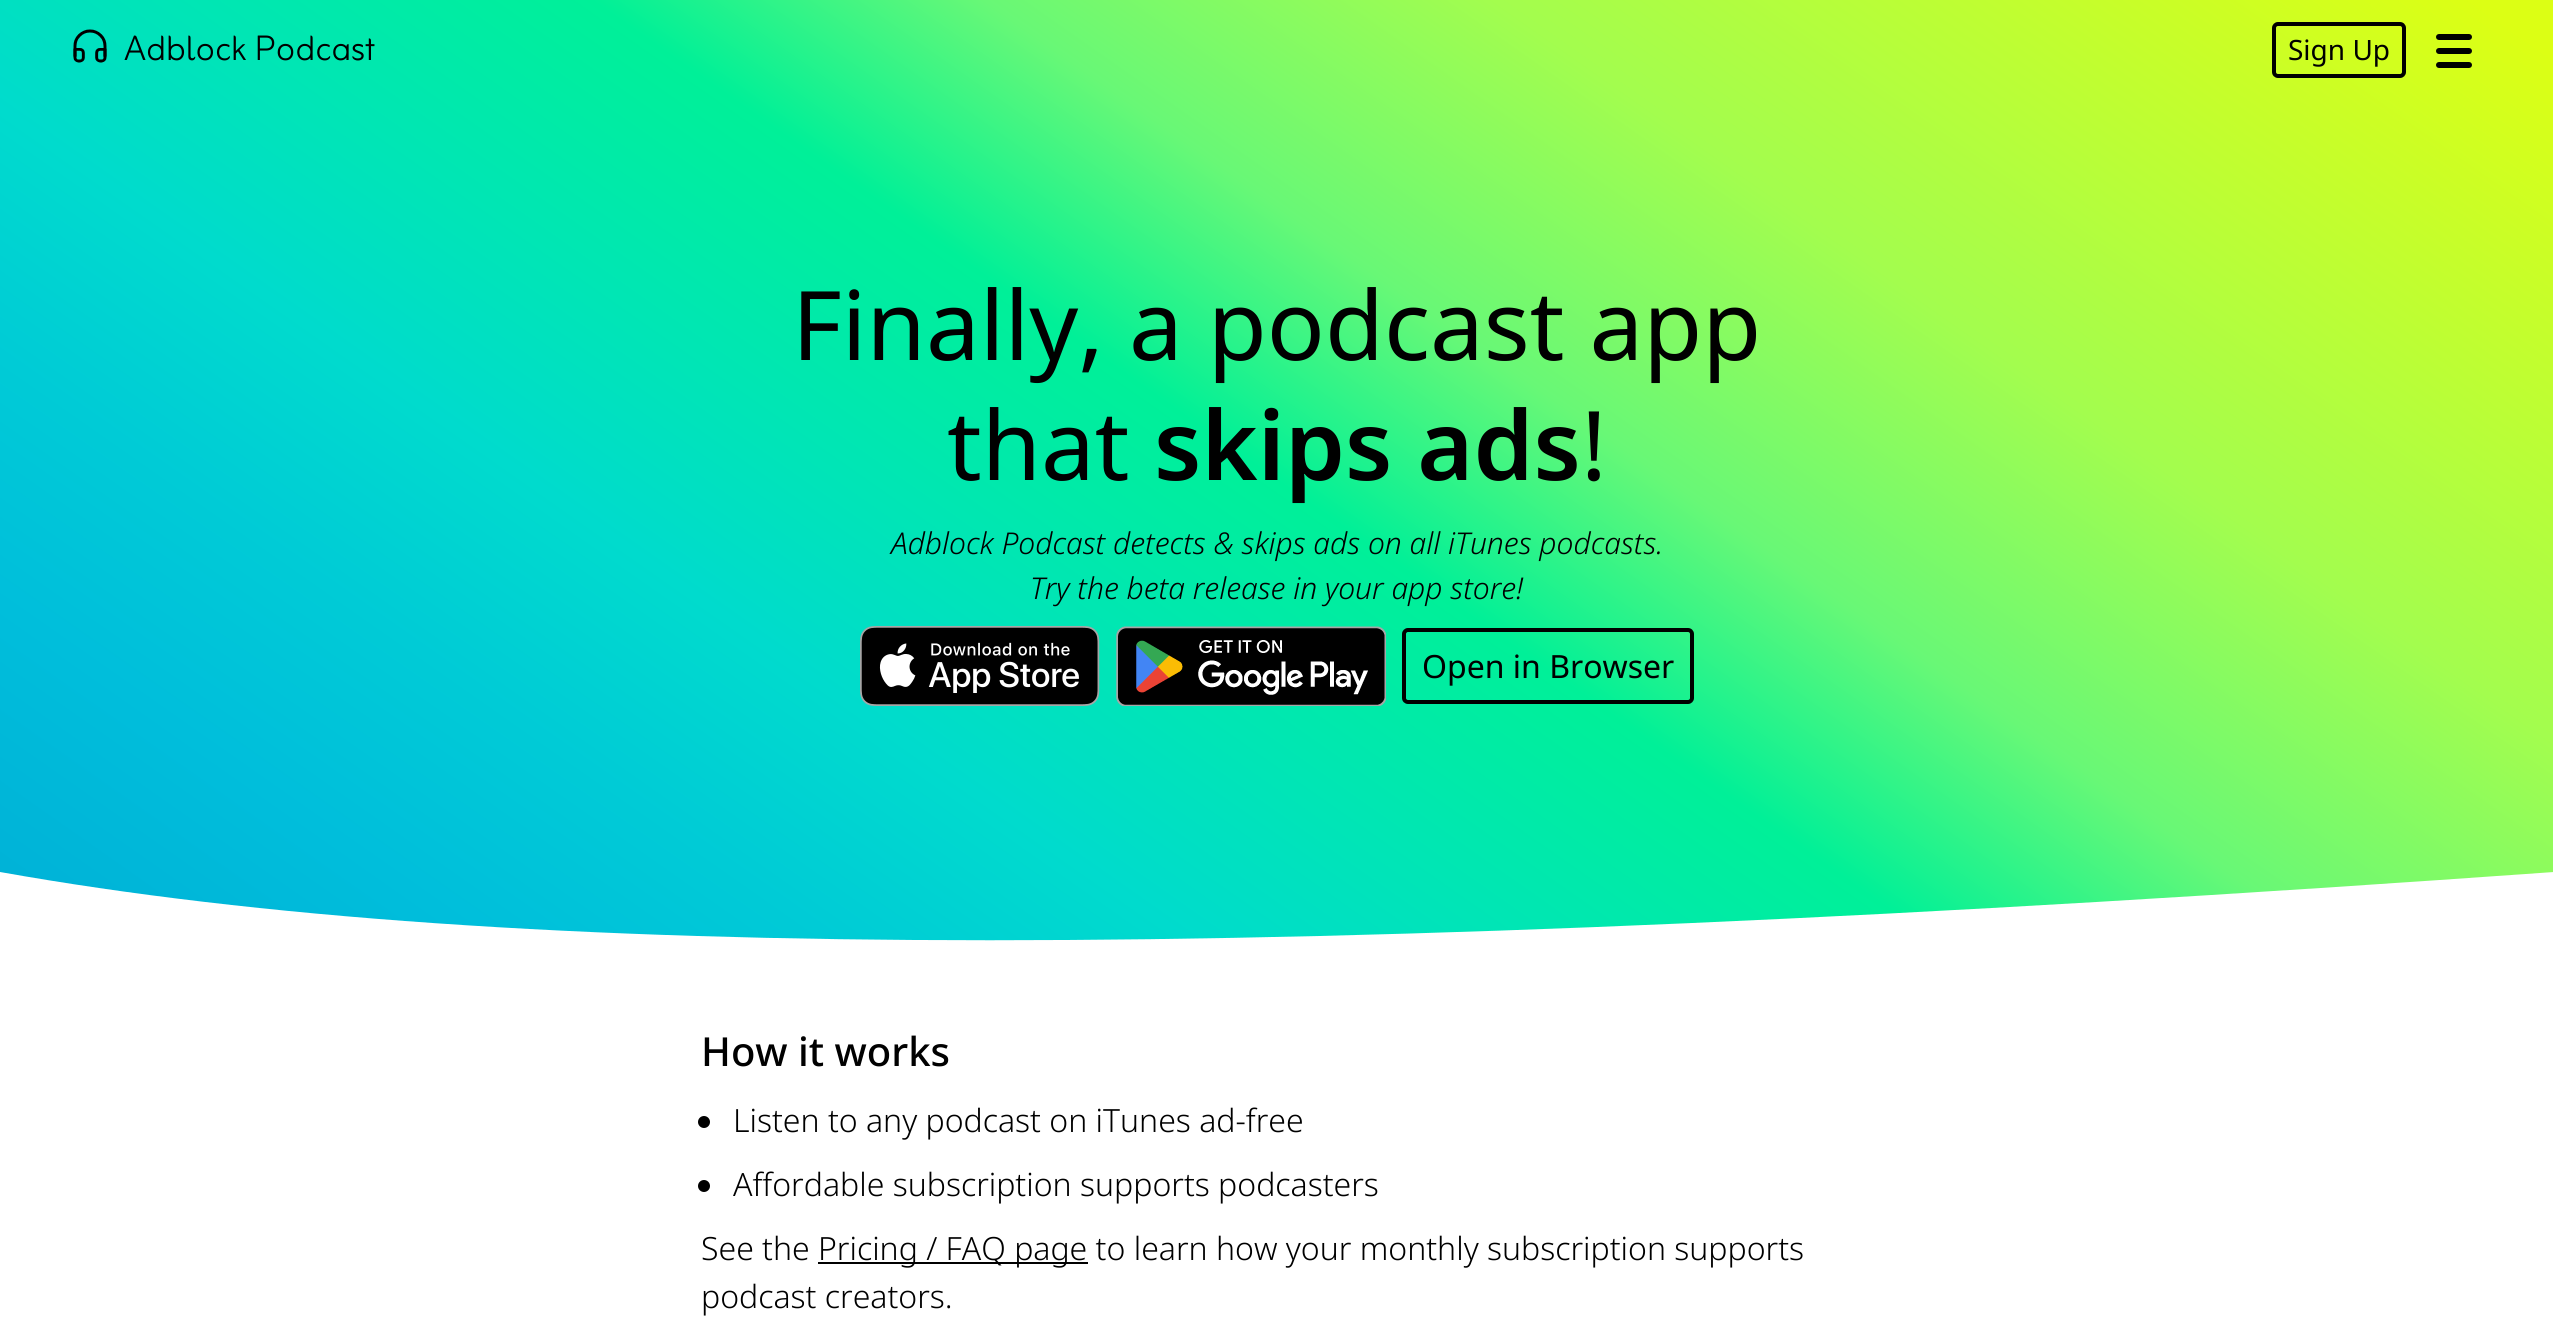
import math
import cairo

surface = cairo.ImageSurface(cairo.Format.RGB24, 2553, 1332)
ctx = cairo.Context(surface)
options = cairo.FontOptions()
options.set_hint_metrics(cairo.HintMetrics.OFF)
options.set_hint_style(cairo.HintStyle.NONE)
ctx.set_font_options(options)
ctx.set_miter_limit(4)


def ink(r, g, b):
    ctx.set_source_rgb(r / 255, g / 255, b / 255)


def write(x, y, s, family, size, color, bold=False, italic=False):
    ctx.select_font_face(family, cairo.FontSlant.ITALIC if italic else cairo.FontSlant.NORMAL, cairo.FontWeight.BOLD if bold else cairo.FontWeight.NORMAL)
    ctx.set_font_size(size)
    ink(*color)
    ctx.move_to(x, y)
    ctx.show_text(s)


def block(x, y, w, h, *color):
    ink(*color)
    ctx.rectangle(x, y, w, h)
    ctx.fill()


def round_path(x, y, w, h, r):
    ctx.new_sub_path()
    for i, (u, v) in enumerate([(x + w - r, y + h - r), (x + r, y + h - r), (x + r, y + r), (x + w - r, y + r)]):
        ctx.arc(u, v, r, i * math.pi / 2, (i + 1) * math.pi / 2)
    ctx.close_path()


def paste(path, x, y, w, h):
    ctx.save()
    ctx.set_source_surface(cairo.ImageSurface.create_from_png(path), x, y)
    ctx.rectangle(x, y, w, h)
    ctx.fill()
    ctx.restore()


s1 = dict(family="Zain Light", size=44, color=(0, 0, 0))
s2 = dict(family="Noto Sans", size=28, color=(0, 0, 0))
s3 = dict(family="Noto Sans", size=96, color=(0, 0, 0))
s4 = dict(family="Noto Sans SemiBold", size=96, color=(0, 0, 0))
s5 = dict(family="Noto Sans Light", size=30, color=(0, 0, 0), italic=True)
s6 = dict(family="Noto Sans", size=32, color=(0, 0, 0))
s7 = dict(family="Noto Sans Medium", size=40, color=(0, 0, 0))
s8 = dict(family="Noto Sans Light", size=32, color=(0, 0, 0))

ink(255, 255, 255)
ctx.paint()
gradient = cairo.LinearGradient(631, 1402, 1923, -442)
gradient.add_color_stop_rgba(0, 0, 0.686, 0.839, 1)
gradient.add_color_stop_rgba(0.13, 0, 0.745, 0.859, 1)
gradient.add_color_stop_rgba(0.22, 0, 0.796, 0.839, 1)
gradient.add_color_stop_rgba(0.31, 0, 0.859, 0.804, 1)
gradient.add_color_stop_rgba(0.4, 0, 0.902, 0.706, 1)
gradient.add_color_stop_rgba(0.5, 0, 0.941, 0.596, 1)
gradient.add_color_stop_rgba(0.6, 0.408, 0.973, 0.463, 1)
gradient.add_color_stop_rgba(0.73, 0.639, 0.992, 0.306, 1)
gradient.add_color_stop_rgba(0.98, 0.863, 1, 0.078, 1)
ctx.set_source(gradient)
ctx.rectangle(0, 0, 2553, 941)
ctx.fill()
paste("pic1.png", 73, 29, 34, 34)
write(124, 60, "Adblock Podcast", **s1)
round_path(2274, 24, 130, 52, 4)
ctx.set_line_width(4)
ctx.stroke()
write(2288, 60, "Sign Up", **s2)
round_path(2436, 34, 36, 6, 3)
ctx.fill()
round_path(2436, 48, 36, 6, 3)
ctx.fill()
round_path(2436, 62, 36, 6, 3)
ctx.fill()
write(792, 360, "Finally, a podcast app", **s3)
write(947, 480, "that", **s3)
write(1154, 480, "skips ads", **s4)
write(1581, 480, "!", **s3)
write(891, 554, "Adblock Podcast detects & skips ads on all iTunes podcasts.", **s5)
write(1030, 599, "Try the beta release in your app store!", **s5)
paste("pic2.png", 860, 626, 240, 80)
paste("pic3.png", 1116, 626, 270, 80)
round_path(1404, 630, 288, 72, 4)
ctx.stroke()
write(1422, 678, "Open in Browser", **s6)
ctx.save()
ctx.rectangle(0, 870, 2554, 92)
ctx.clip()
ink(255, 255, 255)
ctx.new_path()
ctx.move_to(0, 872)
ctx.curve_to(511, 963, 1277, 963, 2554, 872)
ctx.line_to(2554, 964)
ctx.line_to(0, 964)
ctx.close_path()
ctx.fill()
ctx.restore()
write(701, 1066, "How it works", **s7)
ctx.new_path()
ctx.arc(704, 1122, 6, 0, 2 * math.pi)
ctx.fill()
write(733, 1132, "Listen to any podcast on iTunes ad-free", **s8)
ctx.new_path()
ctx.arc(704, 1186, 6, 0, 2 * math.pi)
ctx.fill()
write(733, 1196, "Affordable subscription supports podcasters", **s8)
write(701, 1260, "See the", **s8)
block(818, 1262, 270, 2, 0, 0, 0)
write(818, 1260, "Pricing / FAQ page to learn how your monthly subscription supports", **s8)
write(701, 1308, "podcast creators.", **s8)
surface.write_to_png("screenshot.png")
